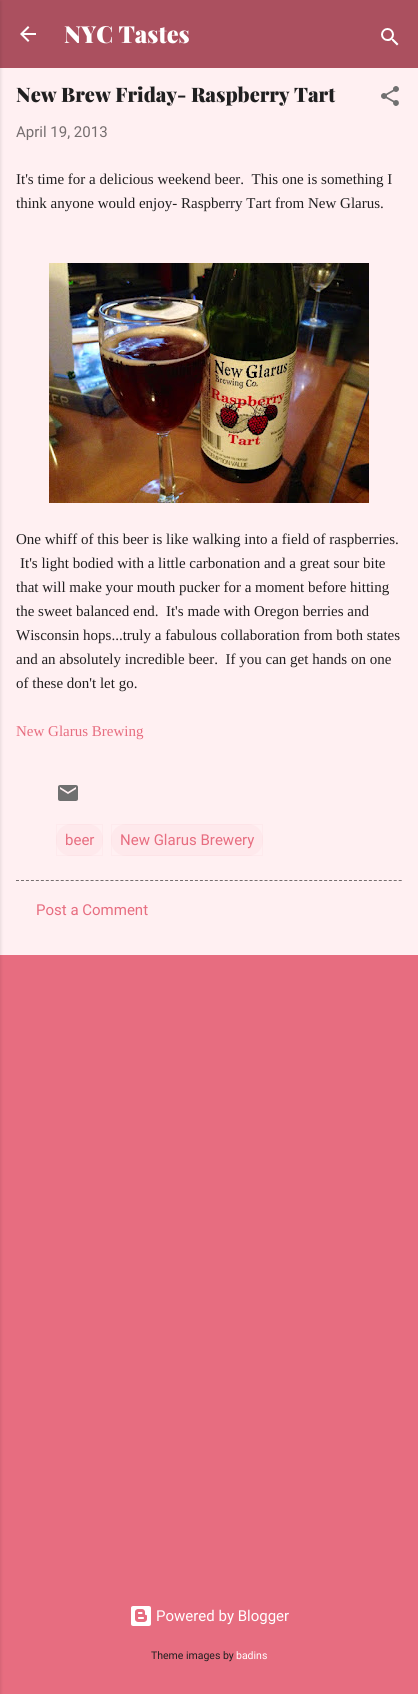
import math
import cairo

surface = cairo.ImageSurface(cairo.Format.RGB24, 418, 1694)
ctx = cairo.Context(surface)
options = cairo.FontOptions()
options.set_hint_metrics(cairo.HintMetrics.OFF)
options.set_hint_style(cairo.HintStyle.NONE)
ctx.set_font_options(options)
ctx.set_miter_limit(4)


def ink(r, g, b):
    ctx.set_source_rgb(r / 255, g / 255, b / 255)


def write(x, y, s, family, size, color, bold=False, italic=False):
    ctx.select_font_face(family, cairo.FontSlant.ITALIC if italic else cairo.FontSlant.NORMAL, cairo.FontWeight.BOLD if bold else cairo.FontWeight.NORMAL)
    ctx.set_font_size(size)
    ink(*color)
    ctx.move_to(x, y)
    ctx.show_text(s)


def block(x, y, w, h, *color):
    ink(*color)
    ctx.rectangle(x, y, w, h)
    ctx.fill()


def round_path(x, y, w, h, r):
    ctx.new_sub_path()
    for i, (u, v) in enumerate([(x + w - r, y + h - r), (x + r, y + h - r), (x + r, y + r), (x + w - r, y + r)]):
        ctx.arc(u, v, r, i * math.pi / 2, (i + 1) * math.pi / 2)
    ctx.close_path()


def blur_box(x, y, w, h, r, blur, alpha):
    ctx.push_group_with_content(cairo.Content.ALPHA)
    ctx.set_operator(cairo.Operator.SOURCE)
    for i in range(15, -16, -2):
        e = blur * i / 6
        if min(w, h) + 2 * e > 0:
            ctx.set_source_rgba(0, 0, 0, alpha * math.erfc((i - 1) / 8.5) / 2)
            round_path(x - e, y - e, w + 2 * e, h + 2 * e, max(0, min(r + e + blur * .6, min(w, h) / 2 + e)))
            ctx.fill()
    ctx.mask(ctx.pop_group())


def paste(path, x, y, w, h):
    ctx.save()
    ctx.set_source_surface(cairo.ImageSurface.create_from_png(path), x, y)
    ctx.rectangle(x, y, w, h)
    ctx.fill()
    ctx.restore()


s1 = dict(family="Playfair Display Black", size=23.5, color=(255, 255, 255))
s2 = dict(family="Playfair Display Black", size=20, color=(32, 31, 32))
s3 = dict(family="Roboto", size=15, color=(117, 110, 111))
s4 = dict(family="Liberation Serif", size=15, color=(32, 31, 32))
s5 = dict(family="Liberation Serif", size=15, color=(231, 109, 128))
s6 = dict(family="Roboto", size=15, color=(231, 109, 128))
s7 = dict(family="Roboto", size=15, color=(255, 255, 255))
s8 = dict(family="Roboto", size=10.5, color=(32, 31, 32))
s9 = dict(family="Roboto", size=10.5, color=(255, 255, 255))

ink(231, 109, 128)
ctx.paint()
block(0, 0, 418, 68, 171, 80, 95)
block(0, 68, 418, 887, 255, 240, 242)
ink(0, 0, 0)
blur_box(-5, 1, 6, 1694, 0, 1.5, 0.1)
paste("pic1.png", 20, 26, 16, 16)
write(64, 43, "NYC Tastes", **s1)
paste("pic2.png", 381, 28, 18, 18)
write(16, 102, "New Brew Friday- Raspberry Tart", **s2)
paste("pic3.png", 381, 86, 18, 20)
write(16, 137, "April 19, 2013", **s3)
write(16, 184, "It's time for a delicious weekend beer.  This one is something I", **s4)
write(16, 208, "think anyone would enjoy- Raspberry Tart from New Glarus.", **s4)
paste("pic4.png", 49, 263, 320, 240)
write(16, 544, "One whiff of this beer is like walking into a field of raspberries.", **s4)
write(20, 568, "It's light bodied with a little carbonation and a great sour bite", **s4)
write(16, 592, "that will make your mouth pucker for a moment before hitting", **s4)
write(16, 616, "the sweet balanced end.  It's made with Oregon berries and", **s4)
write(16, 640, "Wisconsin hops...truly a fabulous collaboration from both states", **s4)
write(16, 664, "and an absolutely incredible beer.  If you can get hands on one", **s4)
write(16, 688, "of these don't let go.", **s4)
write(16, 736, "New Glarus Brewing", **s5)
paste("pic5.png", 58, 785, 20, 16)
ink(254, 233, 236)
round_path(56, 824, 47, 32, 15)
ctx.fill()
ctx.rectangle(56.5, 824.5, 46, 31)
ctx.set_source_rgba(0.906, 0.427, 0.502, 0.05)
ctx.set_line_width(1)
ctx.stroke()
write(65, 845, "beer", **s6)
ink(254, 233, 236)
round_path(111, 824, 152, 32, 15)
ctx.fill()
ctx.rectangle(111.5, 824.5, 151, 31)
ctx.set_source_rgba(0.906, 0.427, 0.502, 0.05)
ctx.stroke()
write(120, 845, "New Glarus Brewery", **s6)
ctx.new_path()
ctx.move_to(16, 880.5)
ctx.line_to(402, 880.5)
ink(117, 110, 111)
ctx.set_dash([3, 1.97])
ctx.stroke()
write(36, 915, "Post a Comment", **s6)
paste("pic6.png", 131, 1606, 20, 20)
write(156, 1621, "Powered by Blogger", **s7)
write(151, 1659, "Theme images by", **s8)
write(236, 1659, "badins", **s9)
surface.write_to_png("screenshot.png")
